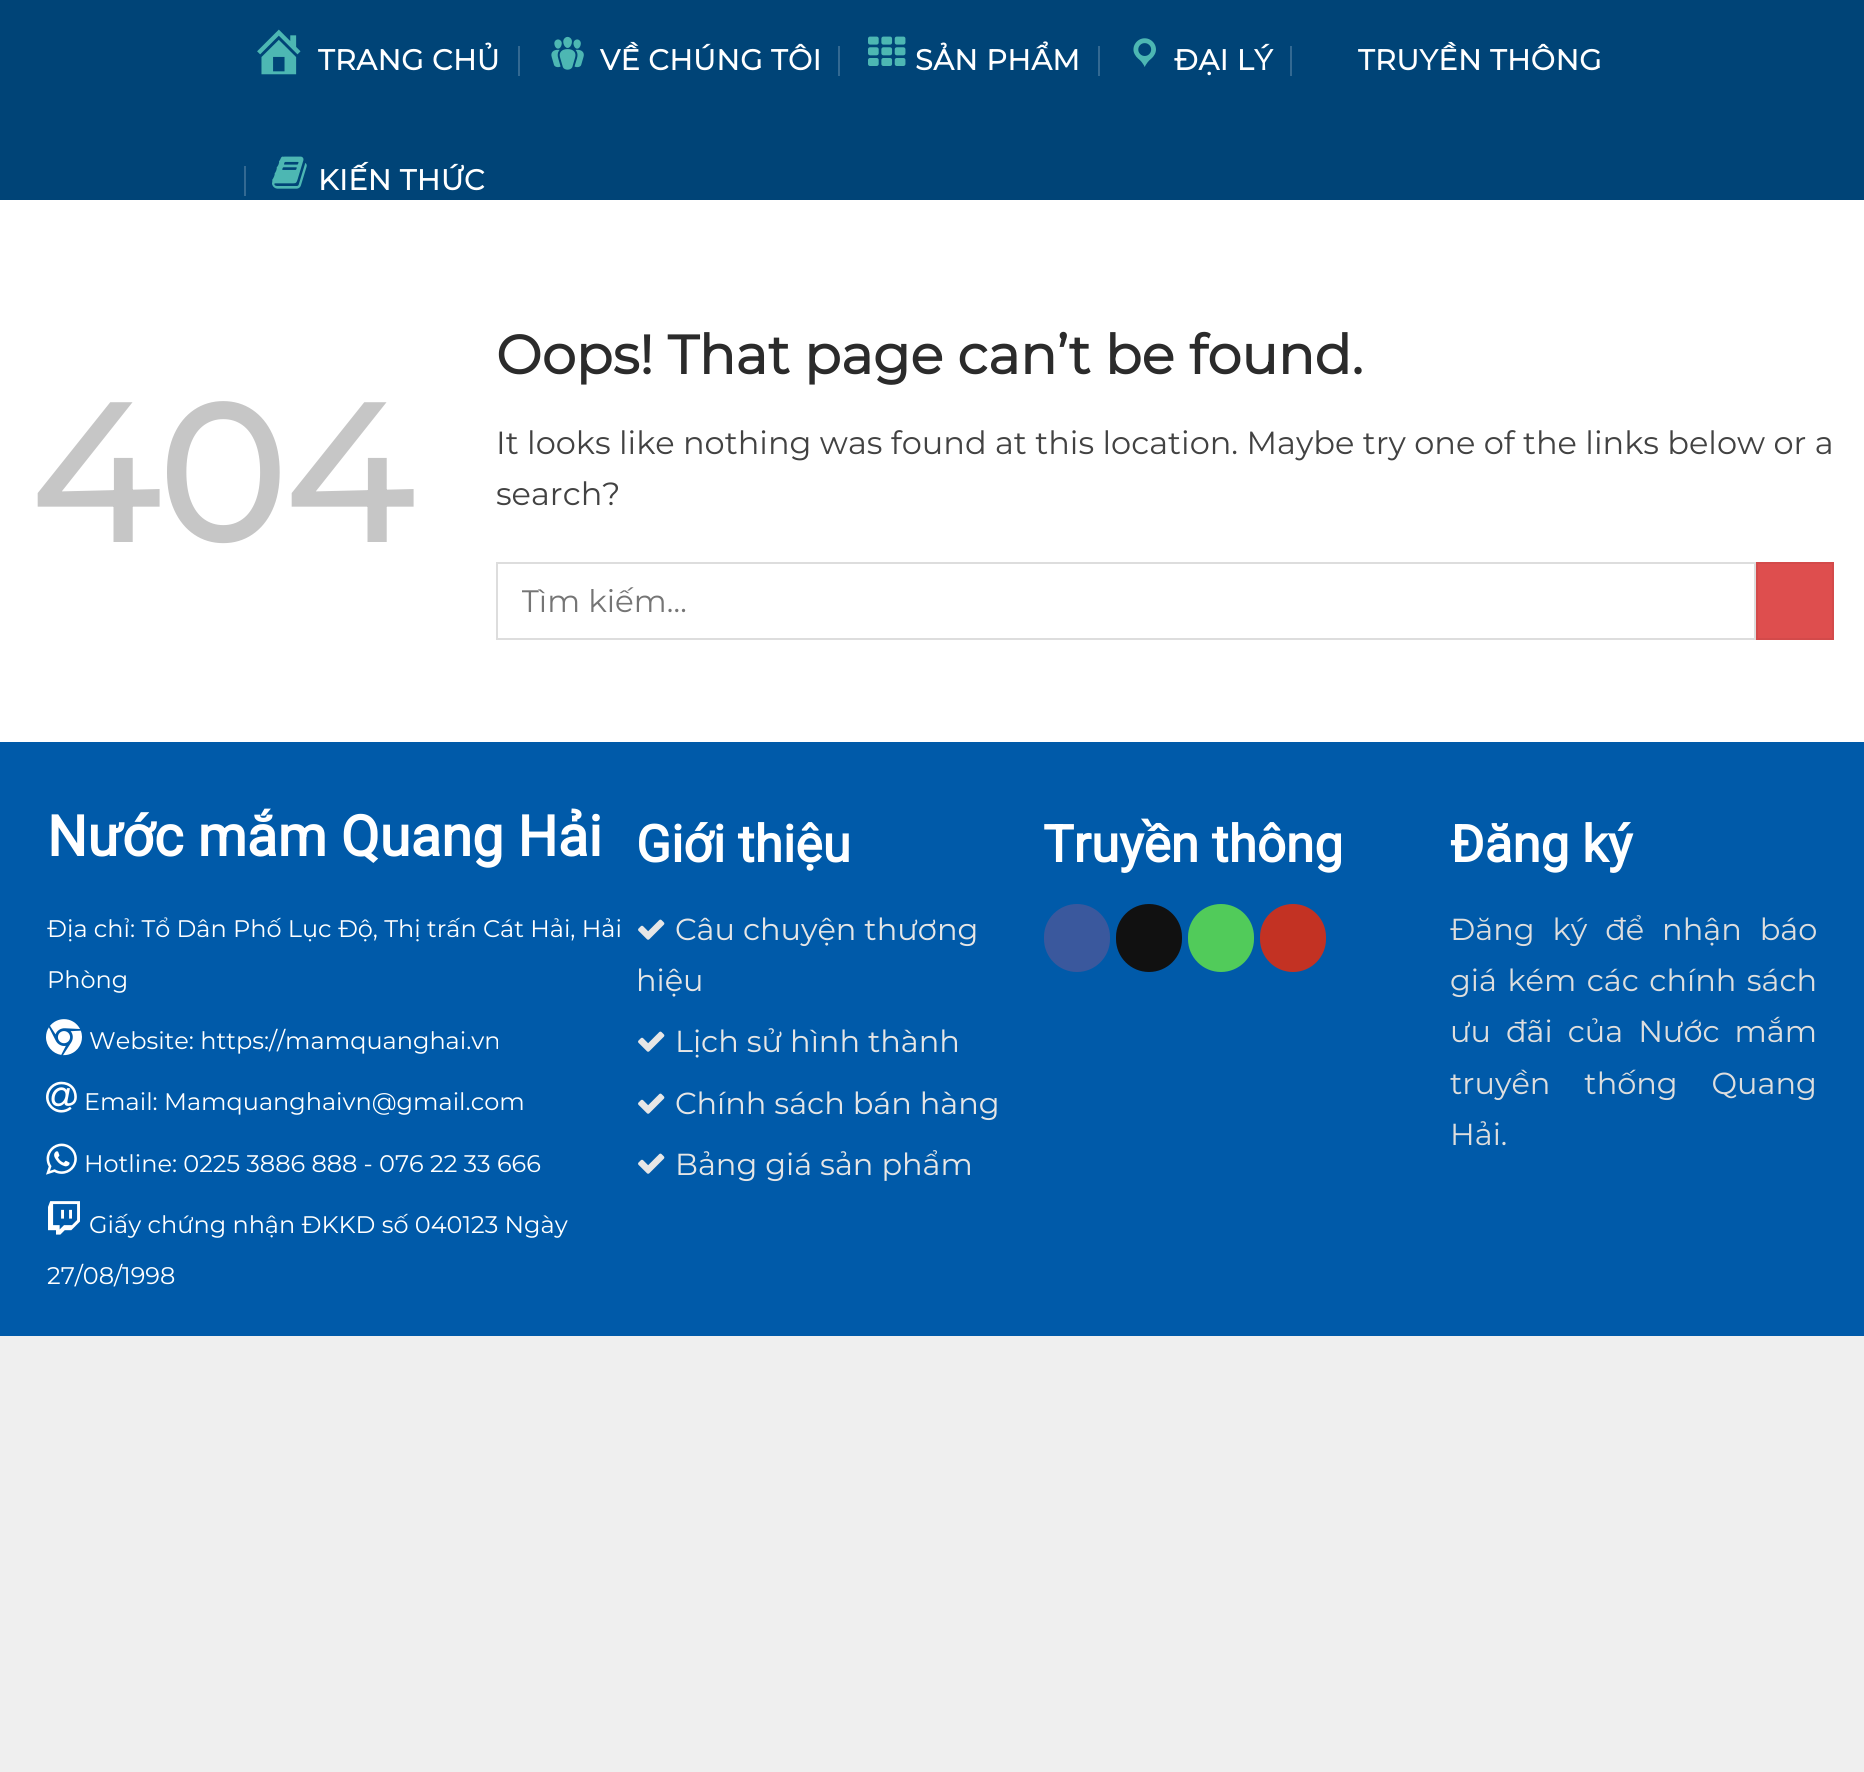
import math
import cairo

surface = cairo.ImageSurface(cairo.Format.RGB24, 1864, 1772)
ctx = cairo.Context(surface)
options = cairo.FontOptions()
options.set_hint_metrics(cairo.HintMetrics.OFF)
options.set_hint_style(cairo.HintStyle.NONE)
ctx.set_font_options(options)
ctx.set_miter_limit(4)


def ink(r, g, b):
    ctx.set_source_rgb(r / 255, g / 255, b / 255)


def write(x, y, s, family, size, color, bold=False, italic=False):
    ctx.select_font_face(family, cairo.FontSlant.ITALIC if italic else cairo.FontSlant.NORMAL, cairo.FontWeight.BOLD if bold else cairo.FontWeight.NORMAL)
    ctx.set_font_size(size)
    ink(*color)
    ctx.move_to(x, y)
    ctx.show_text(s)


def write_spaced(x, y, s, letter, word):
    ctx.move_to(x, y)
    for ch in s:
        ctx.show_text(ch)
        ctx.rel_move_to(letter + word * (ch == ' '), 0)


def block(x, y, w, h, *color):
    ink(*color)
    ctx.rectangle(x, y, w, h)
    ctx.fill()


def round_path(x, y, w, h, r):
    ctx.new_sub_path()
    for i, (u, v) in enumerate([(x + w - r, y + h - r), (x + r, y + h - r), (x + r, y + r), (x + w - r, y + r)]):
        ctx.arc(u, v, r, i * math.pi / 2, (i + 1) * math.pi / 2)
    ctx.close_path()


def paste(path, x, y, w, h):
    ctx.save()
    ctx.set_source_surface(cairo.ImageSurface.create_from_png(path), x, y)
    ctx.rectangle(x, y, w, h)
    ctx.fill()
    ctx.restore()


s1 = dict(family="Montserrat", size=192, color=(198, 198, 198), bold=True)
s2 = dict(family="Montserrat", size=54.4, color=(43, 43, 43), bold=True)
s3 = dict(family="Montserrat Thin", size=32, color=(66, 66, 66))
s4 = dict(family="Montserrat Thin", size=31, color=(117, 117, 117))
s5 = dict(family="Roboto", size=56.25, color=(255, 255, 255), bold=True)
s6 = dict(family="Montserrat Thin", size=24, color=(255, 255, 255))
s7 = dict(family="Roboto", size=51.25, color=(255, 255, 255), bold=True)
s8 = dict(family="Montserrat Thin", size=30.4, color=(230, 230, 230))
s9 = dict(family="Montserrat Thin", size=30.4, color=(222, 222, 222))

ink(239, 239, 239)
ctx.paint()
block(0, 200, 1864, 542, 255, 255, 255)
block(0, 0, 1864, 200, 0, 68, 119)
paste("pic1.png", 257, 29, 44, 46)
ctx.select_font_face("Montserrat", cairo.FontSlant.NORMAL, cairo.FontWeight.BOLD)
ctx.set_font_size(28.75)
ink(255, 255, 255)
write_spaced(318, 70, "TRANG CHỦ", 0.5, 0)
block(518, 46, 2, 30, 51, 105, 146)
paste("pic2.png", 551, 36, 33, 34)
ink(255, 255, 255)
write_spaced(600, 70, "VỀ CHÚNG TÔI", 0.5, 0)
block(838, 46, 2, 30, 51, 105, 146)
paste("pic3.png", 868, 36, 38, 30)
ink(255, 255, 255)
write_spaced(915, 70, "SẢN PHẨM", 0.5, 0)
block(1098, 46, 2, 30, 51, 105, 146)
paste("pic4.png", 1133, 38, 23, 29)
ink(255, 255, 255)
write_spaced(1174, 70, "ĐẠI LÝ", 0.5, 0)
block(1290, 46, 2, 30, 51, 105, 146)
ink(255, 255, 255)
write_spaced(1358, 70, "TRUYỀN THÔNG", 0.5, 0)
block(244, 166, 2, 30, 51, 105, 146)
paste("pic5.png", 272, 156, 35, 33)
ink(255, 255, 255)
write_spaced(318, 190, "KIẾN THỨC", 0.5, 0)
write(30, 542, "404", **s1)
write(496, 374, "Oops! That page can’t be found.", **s2)
write(496, 454, "It looks like nothing was found at this location. Maybe try one of the links below or a", **s3)
write(496, 505, "search?", **s3)
ctx.rectangle(497, 563, 1258, 76)
ink(221, 221, 221)
ctx.stroke()
ctx.save()
ctx.rectangle(522, 582, 1202, 38)
ctx.clip()
write(521, 612, "Tìm kiếm…", **s4)
ctx.restore()
ink(222, 78, 78)
ctx.rectangle(1757, 563, 76, 76)
ctx.fill_preserve()
ink(211, 74, 74)
ctx.stroke()
block(0, 742, 1864, 594, 0, 90, 169)
write(47, 856, "Nước mắm Quang Hải", **s5)
write(47, 937, "Địa chỉ: Tổ Dân Phố Lục Độ, Thị trấn Cát Hải, Hải", **s6)
write(47, 988, "Phòng", **s6)
paste("pic6.png", 46, 1019, 36, 37)
write(89, 1049, "Website: https://mamquanghai.vn", **s6)
paste("pic7.png", 46, 1081, 31, 32)
write(84, 1110, "Email: Mamquanghaivn@gmail.com", **s6)
paste("pic8.png", 46, 1143, 31, 32)
write(84, 1172, "Hotline: 0225 3886 888 - 076 22 33 666", **s6)
paste("pic9.png", 48, 1201, 32, 34)
write(89, 1233, "Giấy chứng nhận ĐKKD số 040123 Ngày", **s6)
write(47, 1284, "27/08/1998", **s6)
write(636, 862, "Giới thiệu", **s7)
paste("pic10.png", 638, 919, 27, 21)
write(675, 940, "Câu chuyện thương", **s8)
write(636, 991, "hiệu", **s8)
paste("pic10.png", 638, 1031, 27, 21)
write(675, 1052, "Lịch sử hình thành", **s8)
paste("pic10.png", 638, 1093, 27, 21)
write(675, 1114, "Chính sách bán hàng", **s8)
paste("pic10.png", 638, 1153, 27, 21)
write(675, 1175, "Bảng giá sản phẩm", **s8)
write(1043, 862, "Truyền thông", **s7)
ink(58, 88, 157)
round_path(1045, 905, 64, 66, 32)
ctx.fill_preserve()
ctx.stroke()
ink(17, 17, 17)
round_path(1117, 905, 64, 66, 32)
ctx.fill_preserve()
ctx.stroke()
ink(81, 203, 90)
round_path(1189, 905, 64, 66, 32)
ctx.fill_preserve()
ctx.stroke()
ink(195, 50, 35)
round_path(1261, 905, 64, 66, 32)
ctx.fill_preserve()
ctx.stroke()
write(1450, 862, "Đăng ký", **s7)
ctx.select_font_face("Montserrat Thin")
ctx.set_font_size(30.4)
ink(222, 222, 222)
write_spaced(1450, 940, "Đăng ký để nhận báo", 0, 10)
write_spaced(1450, 991, "giá kém các chính sách", 0, 2.5)
write_spaced(1450, 1042, "ưu đãi của Nước mắm", 0, 7)
write_spaced(1450, 1094, "truyền thống Quang", 0, 26)
write(1450, 1145, "Hải.", **s9)
surface.write_to_png("screenshot.png")
